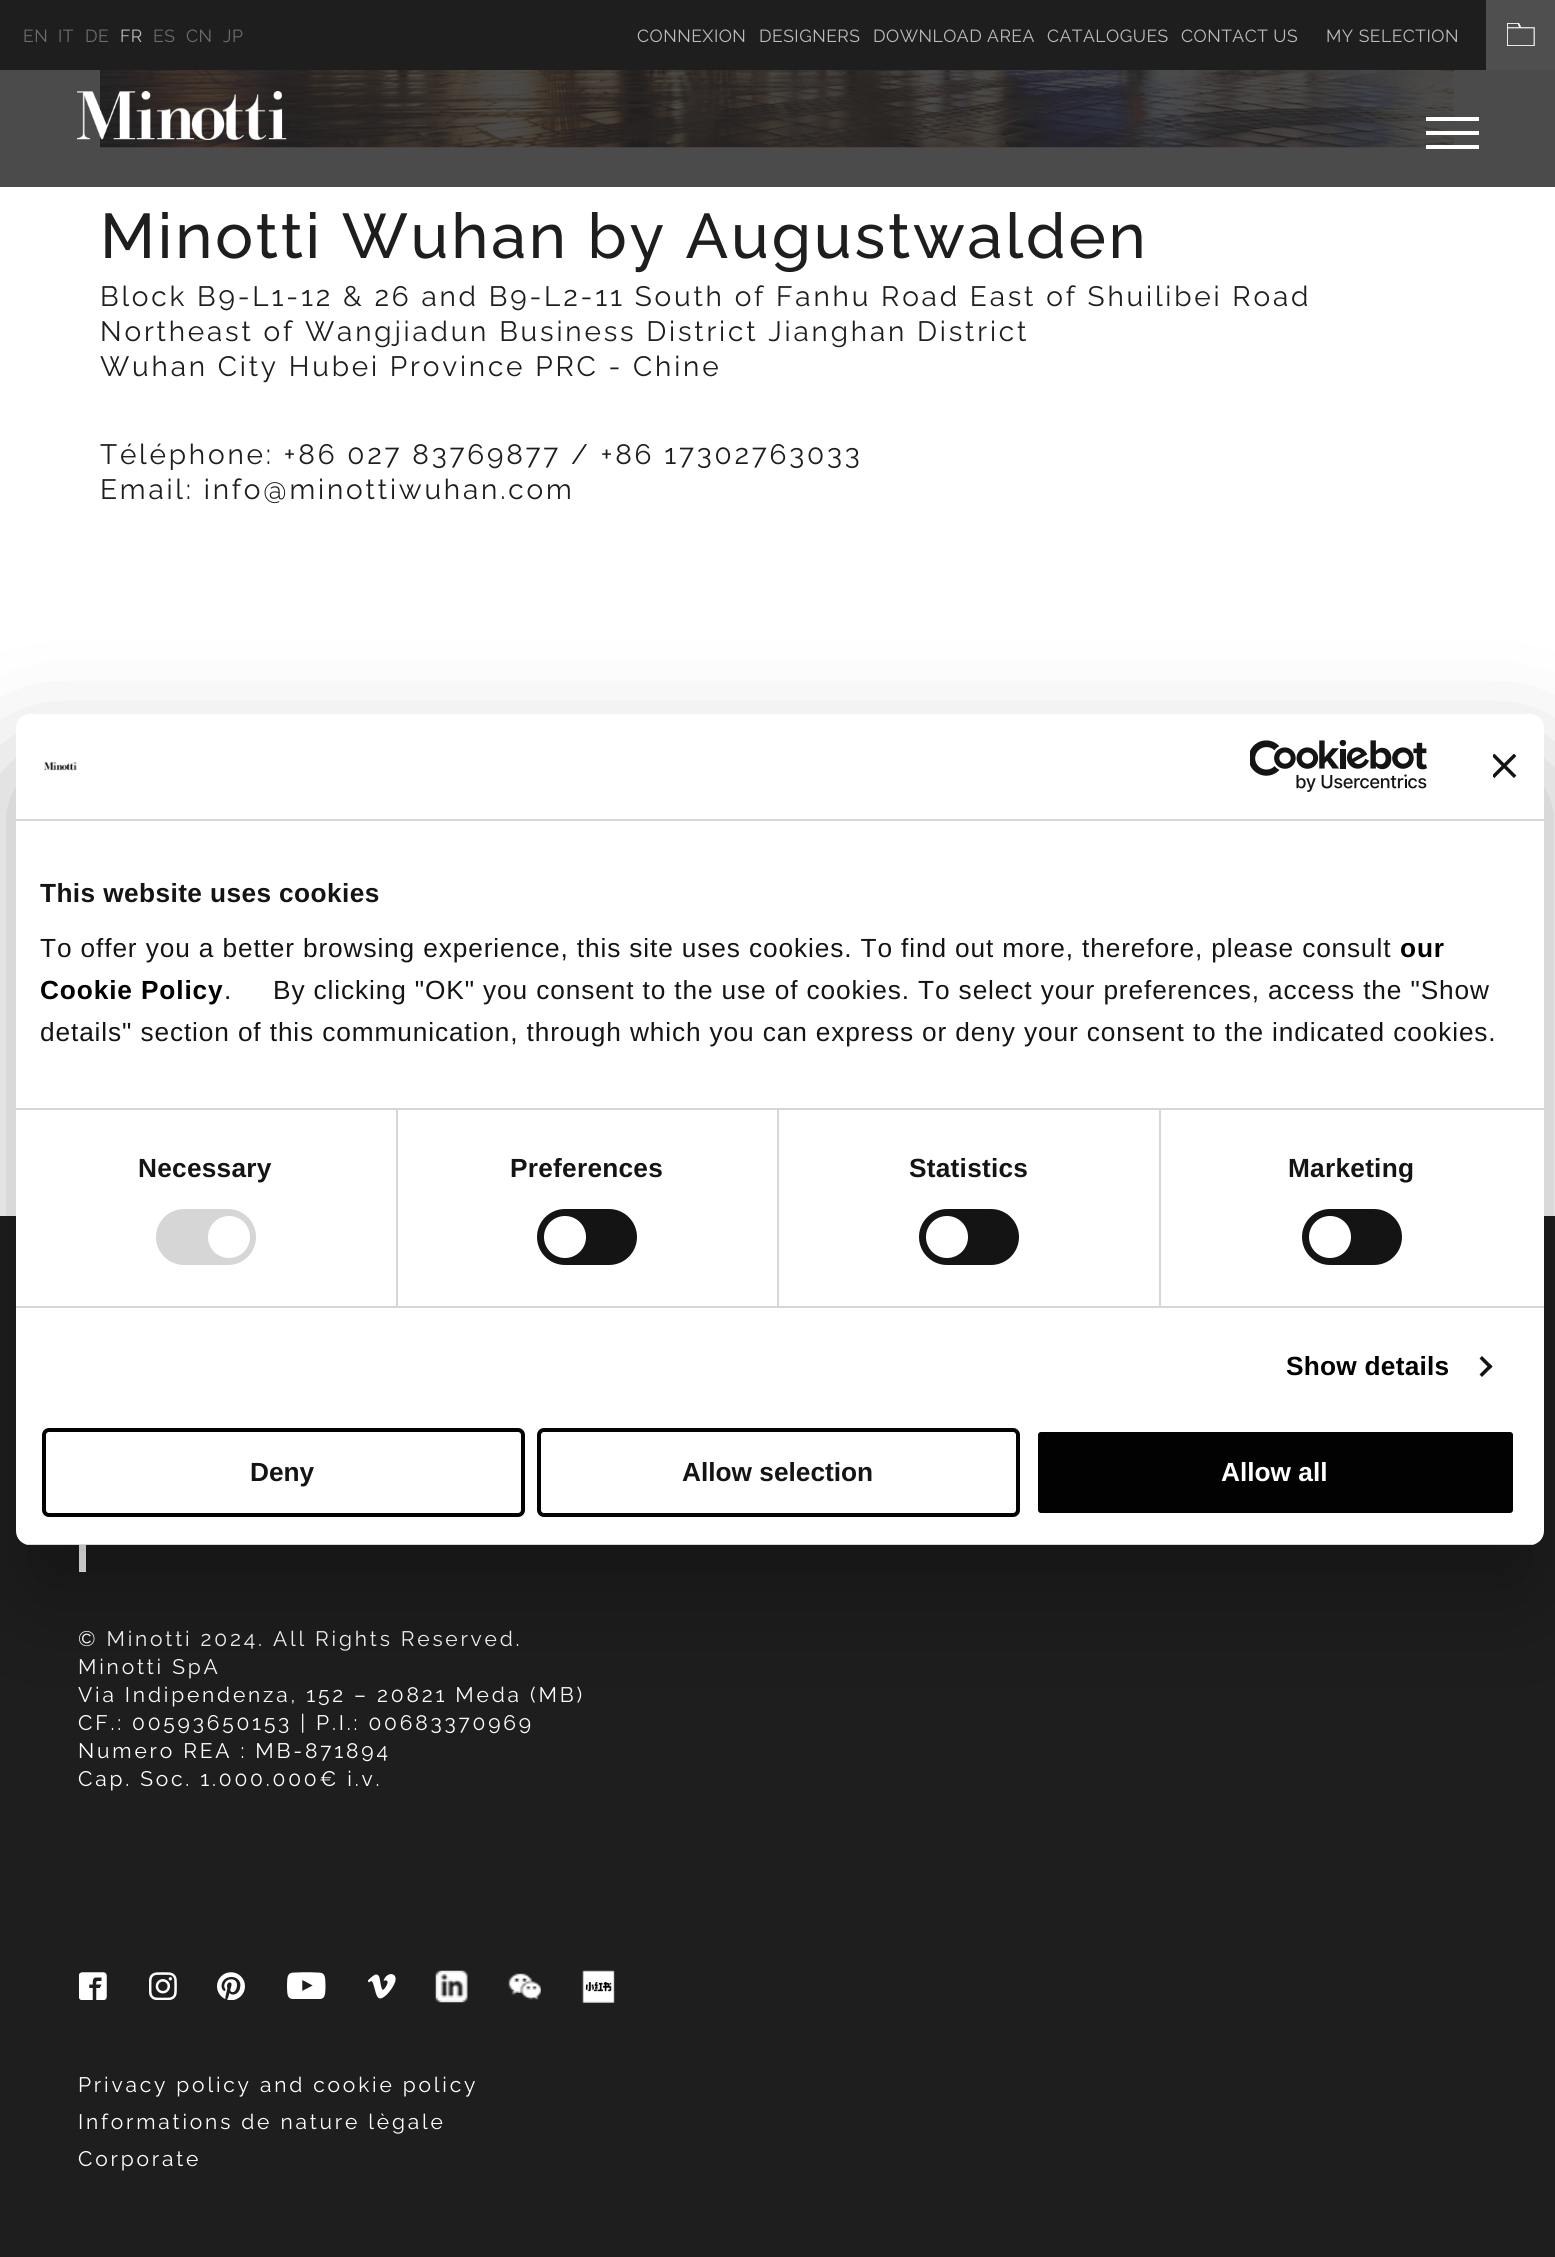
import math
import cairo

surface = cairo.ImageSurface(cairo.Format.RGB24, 1555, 2257)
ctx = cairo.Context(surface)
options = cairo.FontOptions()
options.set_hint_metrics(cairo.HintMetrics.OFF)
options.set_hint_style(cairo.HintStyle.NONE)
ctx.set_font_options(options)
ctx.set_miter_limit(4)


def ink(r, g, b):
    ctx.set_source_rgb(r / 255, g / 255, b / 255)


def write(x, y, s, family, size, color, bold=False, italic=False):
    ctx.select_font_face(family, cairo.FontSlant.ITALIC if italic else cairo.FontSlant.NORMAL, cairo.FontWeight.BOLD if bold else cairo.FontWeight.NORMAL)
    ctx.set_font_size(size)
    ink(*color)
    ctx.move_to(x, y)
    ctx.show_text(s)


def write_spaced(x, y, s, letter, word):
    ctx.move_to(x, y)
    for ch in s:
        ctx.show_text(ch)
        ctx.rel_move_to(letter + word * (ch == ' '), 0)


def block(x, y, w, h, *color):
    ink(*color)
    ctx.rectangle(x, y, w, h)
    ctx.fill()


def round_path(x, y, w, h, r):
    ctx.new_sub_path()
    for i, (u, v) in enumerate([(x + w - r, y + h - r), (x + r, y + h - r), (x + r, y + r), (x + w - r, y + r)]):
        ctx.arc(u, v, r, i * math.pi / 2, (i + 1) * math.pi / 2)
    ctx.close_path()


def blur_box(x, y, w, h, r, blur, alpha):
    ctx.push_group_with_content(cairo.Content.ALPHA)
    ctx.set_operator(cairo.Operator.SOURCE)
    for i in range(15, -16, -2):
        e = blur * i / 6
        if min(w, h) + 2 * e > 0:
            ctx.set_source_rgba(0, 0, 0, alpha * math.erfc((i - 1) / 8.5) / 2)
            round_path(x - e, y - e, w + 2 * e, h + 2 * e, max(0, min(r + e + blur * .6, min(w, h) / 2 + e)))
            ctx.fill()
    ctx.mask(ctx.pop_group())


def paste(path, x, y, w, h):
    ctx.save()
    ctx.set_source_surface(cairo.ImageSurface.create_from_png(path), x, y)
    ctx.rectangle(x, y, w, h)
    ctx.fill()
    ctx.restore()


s1 = dict(family="Liberation Sans", size=26.25, color=(20, 20, 20), bold=True)
s2 = dict(family="Liberation Sans", size=26.25, color=(255, 255, 255), bold=True)

ink(255, 255, 255)
ctx.paint()
block(0, 0, 1486, 70, 30, 30, 30)
ctx.select_font_face("Raleway")
ctx.set_font_size(17.5)
ink(109, 109, 109)
write_spaced(23, 42, "EN", 0.5, 0)
write_spaced(58, 42, "IT", 0.5, 0)
write_spaced(85, 42, "DE", 0.5, 0)
ink(188, 188, 188)
write_spaced(120, 42, "FR", 0.5, 0)
ink(109, 109, 109)
write_spaced(153, 42, "ES", 0.5, 0)
write_spaced(186, 42, "CN", 0.5, 0)
write_spaced(223, 42, "JP", 0.5, 0)
ink(188, 188, 188)
write_spaced(637, 42, "CONNEXION", 0.5, 0)
write_spaced(759, 42, "DESIGNERS", 0.5, 0)
write_spaced(873, 42, "DOWNLOAD AREA", 0.5, 0)
write_spaced(1047, 42, "CATALOGUES", 0.5, 0)
write_spaced(1181, 42, "CONTACT US", 0.5, 0)
write_spaced(1326, 42, "MY SELECTION", 0.5, 0)
block(1486, 0, 69, 70, 79, 79, 79)
paste("pic1.png", 1507, 23, 28, 23)
paste("pic3.png", 100, 70, 1354, 78)
ctx.set_source_rgba(0.118, 0.118, 0.118, 0.8)
ctx.rectangle(0, 70, 1555, 117)
ctx.fill()
paste("pic2.png", 77, 91, 210, 49)
block(1426, 117, 53, 4, 255, 255, 255)
block(1426, 131, 53, 4, 255, 255, 255)
block(1426, 145, 53, 4, 255, 255, 255)
ctx.select_font_face("Raleway Medium")
ctx.set_font_size(63)
ink(30, 30, 30)
write_spaced(100, 258, "Minotti Wuhan by Augustwalden", 2.8, 0)
ctx.select_font_face("Raleway")
ctx.set_font_size(28)
write_spaced(100, 306, "Block B9-L1-12 & 26 and B9-L2-11 South of Fanhu Road East of Shuilibei Road", 2.8, 0)
write_spaced(100, 341, "Northeast of Wangjiadun Business District Jianghan District", 2.8, 0)
write_spaced(100, 376, "Wuhan City Hubei Province PRC - Chine", 2.8, 0)
write_spaced(100, 464, "Téléphone: +86 027 83769877 / +86 17302763033", 2.8, 0)
write_spaced(100, 499, "Email: info@minottiwuhan.com", 2.8, 0)
block(0, 1216, 1555, 1041, 30, 30, 30)
block(79, 1545, 7, 27, 255, 255, 255)
ctx.set_font_size(21)
write_spaced(78, 1646, "© Minotti 2024. All Rights Reserved.", 2.8, 0)
write_spaced(78, 1674, "Minotti SpA", 2.8, 0)
write_spaced(78, 1702, "Via Indipendenza, 152 – 20821 Meda (MB)", 2.8, 0)
write_spaced(78, 1730, "CF.: 00593650153 | P.I.: 00683370969", 2.8, 0)
write_spaced(78, 1758, "Numero REA : MB-871894", 2.8, 0)
write_spaced(78, 1786, "Cap. Soc. 1.000.000€ i.v.", 2.8, 0)
paste("pic4.png", 79, 1972, 28, 28)
paste("pic5.png", 149, 1972, 28, 28)
paste("pic6.png", 217, 1972, 28, 28)
paste("pic7.png", 287, 1972, 39, 27)
paste("pic8.png", 368, 1974, 28, 25)
paste("pic9.png", 435, 1970, 33, 33)
paste("pic10.png", 508, 1973, 33, 27)
paste("pic11.png", 582, 1970, 33, 33)
write_spaced(78, 2092, "Privacy policy and cookie policy", 2.8, 0)
write_spaced(78, 2129, "Informations de nature lègale", 2.8, 0)
write_spaced(78, 2166, "Corporate", 2.8, 0)
ink(0, 0, 0)
blur_box(16, 770, 1528, 831, 14, 59.5, 0.3)
ink(255, 255, 255)
round_path(16, 714, 1528, 831, 14)
ctx.fill()
block(16, 819, 1528, 2, 214, 214, 214)
paste("pic12.png", 44, 761, 33, 10)
paste("pic13.png", 1250, 740, 177, 52)
paste("pic14.png", 1493, 754, 24, 24)
block(16, 1108, 1528, 2, 214, 214, 214)
ctx.select_font_face("Liberation Sans", cairo.FontSlant.NORMAL, cairo.FontWeight.BOLD)
ctx.set_font_size(26.25)
ink(20, 20, 20)
write_spaced(40, 902, "This website uses cookies", 0.4, 0)
ctx.select_font_face("Liberation Sans")
write_spaced(40, 957, "To offer you a better browsing experience, this site uses cookies. To find out more, therefore, please consult", 0.88, 0)
ctx.select_font_face("Liberation Sans", cairo.FontSlant.NORMAL, cairo.FontWeight.BOLD)
ink(0, 0, 0)
write_spaced(1400, 957, "our", 0.88, 0)
write_spaced(40, 999, "Cookie Policy", 0.88, 0)
ctx.select_font_face("Liberation Sans")
ink(20, 20, 20)
write_spaced(224, 999, ".     By clicking \"OK\" you consent to the use of cookies. To select your preferences, access the \"Show", 0.88, 0)
write_spaced(40, 1041, "details\" section of this communication, through which you can express or deny your consent to the indicated cookies.", 0.88, 0)
block(16, 1306, 1528, 2, 214, 214, 214)
block(396, 1110, 2, 196, 214, 214, 214)
ctx.select_font_face("Liberation Sans", cairo.FontSlant.NORMAL, cairo.FontWeight.BOLD)
ink(20, 20, 20)
write_spaced(138, 1177, "Necessary", 0.25, 0)
ink(214, 214, 214)
round_path(156, 1209, 100, 56, 28)
ctx.fill()
ink(255, 255, 255)
ctx.arc(229, 1237, 21, 0, 2 * math.pi)
ctx.fill()
block(777, 1110, 2, 196, 214, 214, 214)
ink(20, 20, 20)
write_spaced(510, 1177, "Preferences", 0.25, 0)
round_path(537, 1209, 100, 56, 28)
ctx.fill()
ink(255, 255, 255)
ctx.arc(565, 1237, 21, 0, 2 * math.pi)
ctx.fill()
block(1159, 1110, 2, 196, 214, 214, 214)
ink(20, 20, 20)
write_spaced(909, 1177, "Statistics", 0.25, 0)
round_path(919, 1209, 100, 56, 28)
ctx.fill()
ink(255, 255, 255)
ctx.arc(947, 1237, 21, 0, 2 * math.pi)
ctx.fill()
ink(20, 20, 20)
write_spaced(1288, 1177, "Marketing", 0.25, 0)
round_path(1302, 1209, 100, 56, 28)
ctx.fill()
ink(255, 255, 255)
ctx.arc(1330, 1237, 21, 0, 2 * math.pi)
ctx.fill()
ink(0, 0, 0)
write_spaced(1286, 1375, "Show details", 0.25, 0)
ink(20, 20, 20)
ctx.new_path()
ctx.move_to(1482, 1356)
ctx.line_to(1492.5, 1366.5)
ctx.line_to(1490, 1369)
ctx.line_to(1479.5, 1358.5)
ctx.close_path()
ctx.fill()
ctx.new_path()
ctx.move_to(1490, 1364)
ctx.line_to(1492.5, 1366.5)
ctx.line_to(1482, 1377)
ctx.line_to(1479.5, 1374.5)
ctx.close_path()
ctx.fill()
ctx.save()
round_path(16, 714, 1528, 831, 14)
ctx.clip()
block(25, 1544, 1510, 1, 214, 214, 214)
ctx.restore()
round_path(44, 1430, 479, 85, 5)
ink(2, 2, 2)
ctx.set_line_width(4)
ctx.stroke()
write(250, 1481, "Deny", **s1)
round_path(539, 1430, 479, 85, 5)
ink(3, 3, 3)
ctx.stroke()
write(682, 1481, "Allow selection", **s1)
ink(2, 2, 2)
round_path(1036, 1430, 479, 85, 5)
ctx.fill_preserve()
ink(255, 255, 255)
ctx.stroke()
write(1221, 1481, "Allow all", **s2)
surface.write_to_png("screenshot.png")
